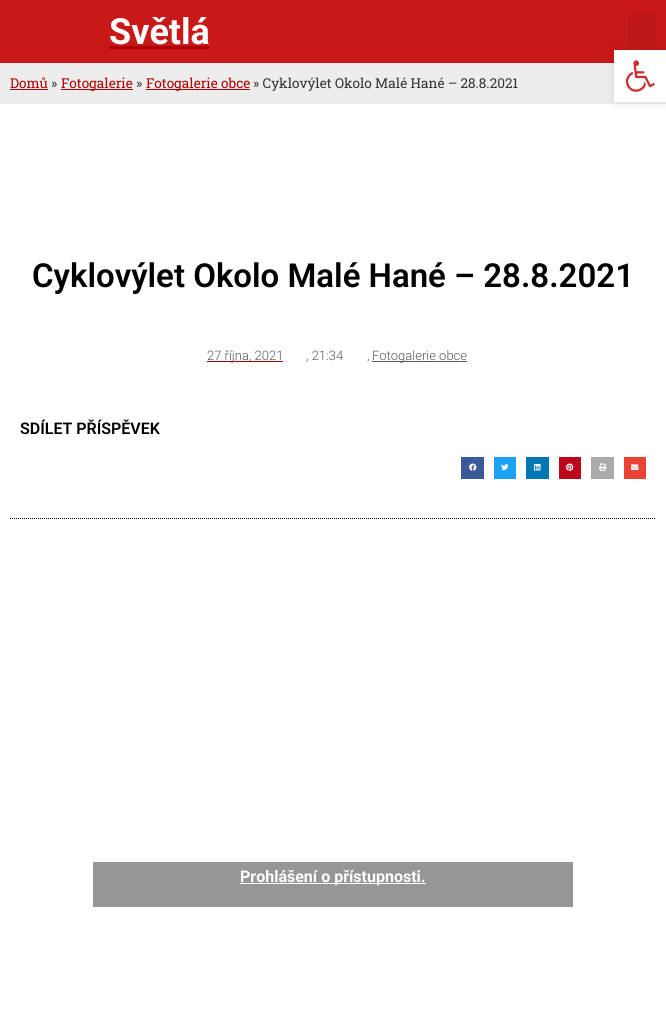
import math
import cairo

surface = cairo.ImageSurface(cairo.Format.RGB24, 666, 1026)
ctx = cairo.Context(surface)
options = cairo.FontOptions()
options.set_hint_metrics(cairo.HintMetrics.OFF)
options.set_hint_style(cairo.HintStyle.NONE)
ctx.set_font_options(options)
ctx.set_miter_limit(4)


def ink(r, g, b):
    ctx.set_source_rgb(r / 255, g / 255, b / 255)


def write(x, y, s, family, size, color, bold=False, italic=False):
    ctx.select_font_face(family, cairo.FontSlant.ITALIC if italic else cairo.FontSlant.NORMAL, cairo.FontWeight.BOLD if bold else cairo.FontWeight.NORMAL)
    ctx.set_font_size(size)
    ink(*color)
    ctx.move_to(x, y)
    ctx.show_text(s)


def block(x, y, w, h, *color):
    ink(*color)
    ctx.rectangle(x, y, w, h)
    ctx.fill()


def round_path(x, y, w, h, r):
    ctx.new_sub_path()
    for i, (u, v) in enumerate([(x + w - r, y + h - r), (x + r, y + h - r), (x + r, y + r), (x + w - r, y + r)]):
        ctx.arc(u, v, r, i * math.pi / 2, (i + 1) * math.pi / 2)
    ctx.close_path()


def blur_box(x, y, w, h, r, blur, alpha):
    ctx.push_group_with_content(cairo.Content.ALPHA)
    ctx.set_operator(cairo.Operator.SOURCE)
    for i in range(15, -16, -2):
        e = blur * i / 6
        if min(w, h) + 2 * e > 0:
            ctx.set_source_rgba(0, 0, 0, alpha * math.erfc((i - 1) / 8.5) / 2)
            round_path(x - e, y - e, w + 2 * e, h + 2 * e, max(0, min(r + e + blur * .6, min(w, h) / 2 + e)))
            ctx.fill()
    ctx.mask(ctx.pop_group())


def paste(path, x, y, w, h):
    ctx.save()
    ctx.set_source_surface(cairo.ImageSurface.create_from_png(path), x, y)
    ctx.rectangle(x, y, w, h)
    ctx.fill()
    ctx.restore()


s1 = dict(family="Roboto", size=36, color=(255, 255, 255), bold=True)
s2 = dict(family="Roboto Slab", size=13.6, color=(174, 1, 1))
s3 = dict(family="Roboto Slab", size=13.6, color=(51, 51, 51))
s4 = dict(family="Roboto SemiBold", size=33, color=(0, 0, 0))
s5 = dict(family="Roboto Light", size=13, color=(84, 89, 95))
s6 = dict(family="Roboto SemiBold", size=16, color=(0, 0, 0))
s7 = dict(family="Roboto", size=16, color=(255, 255, 255), bold=True)

ink(255, 255, 255)
ctx.paint()
block(0, 0, 666, 63, 200, 24, 24)
write(109, 44, "Světlá", **s1)
block(109, 46, 100, 3, 174, 1, 1)
ink(190, 23, 23)
round_path(628, 14, 28, 33, 3)
ctx.fill()
block(0, 63, 666, 41, 237, 237, 237)
write(10, 88, "Domů", **s2)
block(10, 89, 38, 1, 174, 1, 1)
write(51, 88, "»", **s3)
block(61, 89, 72, 1, 174, 1, 1)
write(61, 88, "Fotogalerie", **s2)
write(136, 88, "»", **s3)
block(146, 89, 104, 1, 174, 1, 1)
write(146, 88, "Fotogalerie obce", **s2)
write(253, 88, "» Cyklovýlet Okolo Malé Hané – 28.8.2021", **s3)
ink(0, 0, 0)
blur_box(614, 50, 52, 52, 0, 5, 0.1)
block(614, 50, 52, 52, 255, 255, 255)
paste("pic1.png", 625, 60, 30, 32)
write(32, 287, "Cyklovýlet Okolo Malé Hané – 28.8.2021", **s4)
block(207, 361, 76, 1, 174, 1, 1)
write(207, 360, "27 října, 2021", **s5)
write(306, 360, ", 21:34", **s5)
write(367, 360, ",", **s5)
block(372, 361, 95, 1, 84, 89, 95)
write(372, 360, "Fotogalerie obce", **s5)
write(20, 434, "SDÍLET PŘÍSPĚVEK", **s6)
block(461, 457, 23, 22, 59, 89, 152)
paste("pic2.png", 469, 463, 8, 8)
block(494, 457, 22, 22, 29, 161, 242)
paste("pic3.png", 501, 464, 8, 7)
block(526, 457, 23, 22, 0, 119, 181)
paste("pic4.png", 534, 463, 7, 8)
block(559, 457, 22, 22, 189, 8, 28)
paste("pic5.png", 566, 463, 8, 8)
block(591, 457, 23, 22, 170, 170, 170)
paste("pic6.png", 599, 463, 8, 8)
block(624, 457, 22, 22, 234, 67, 53)
paste("pic7.png", 631, 464, 8, 6)
ctx.new_path()
ctx.move_to(10, 518.5)
ctx.line_to(656, 518.5)
ink(0, 0, 0)
ctx.set_line_width(1)
ctx.set_dash([1, 1])
ctx.stroke()
block(93, 862, 480, 45, 150, 150, 150)
block(240, 883, 186, 1, 255, 255, 255)
write(240, 882, "Prohlášení o přístupnosti.", **s7)
surface.write_to_png("screenshot.png")
